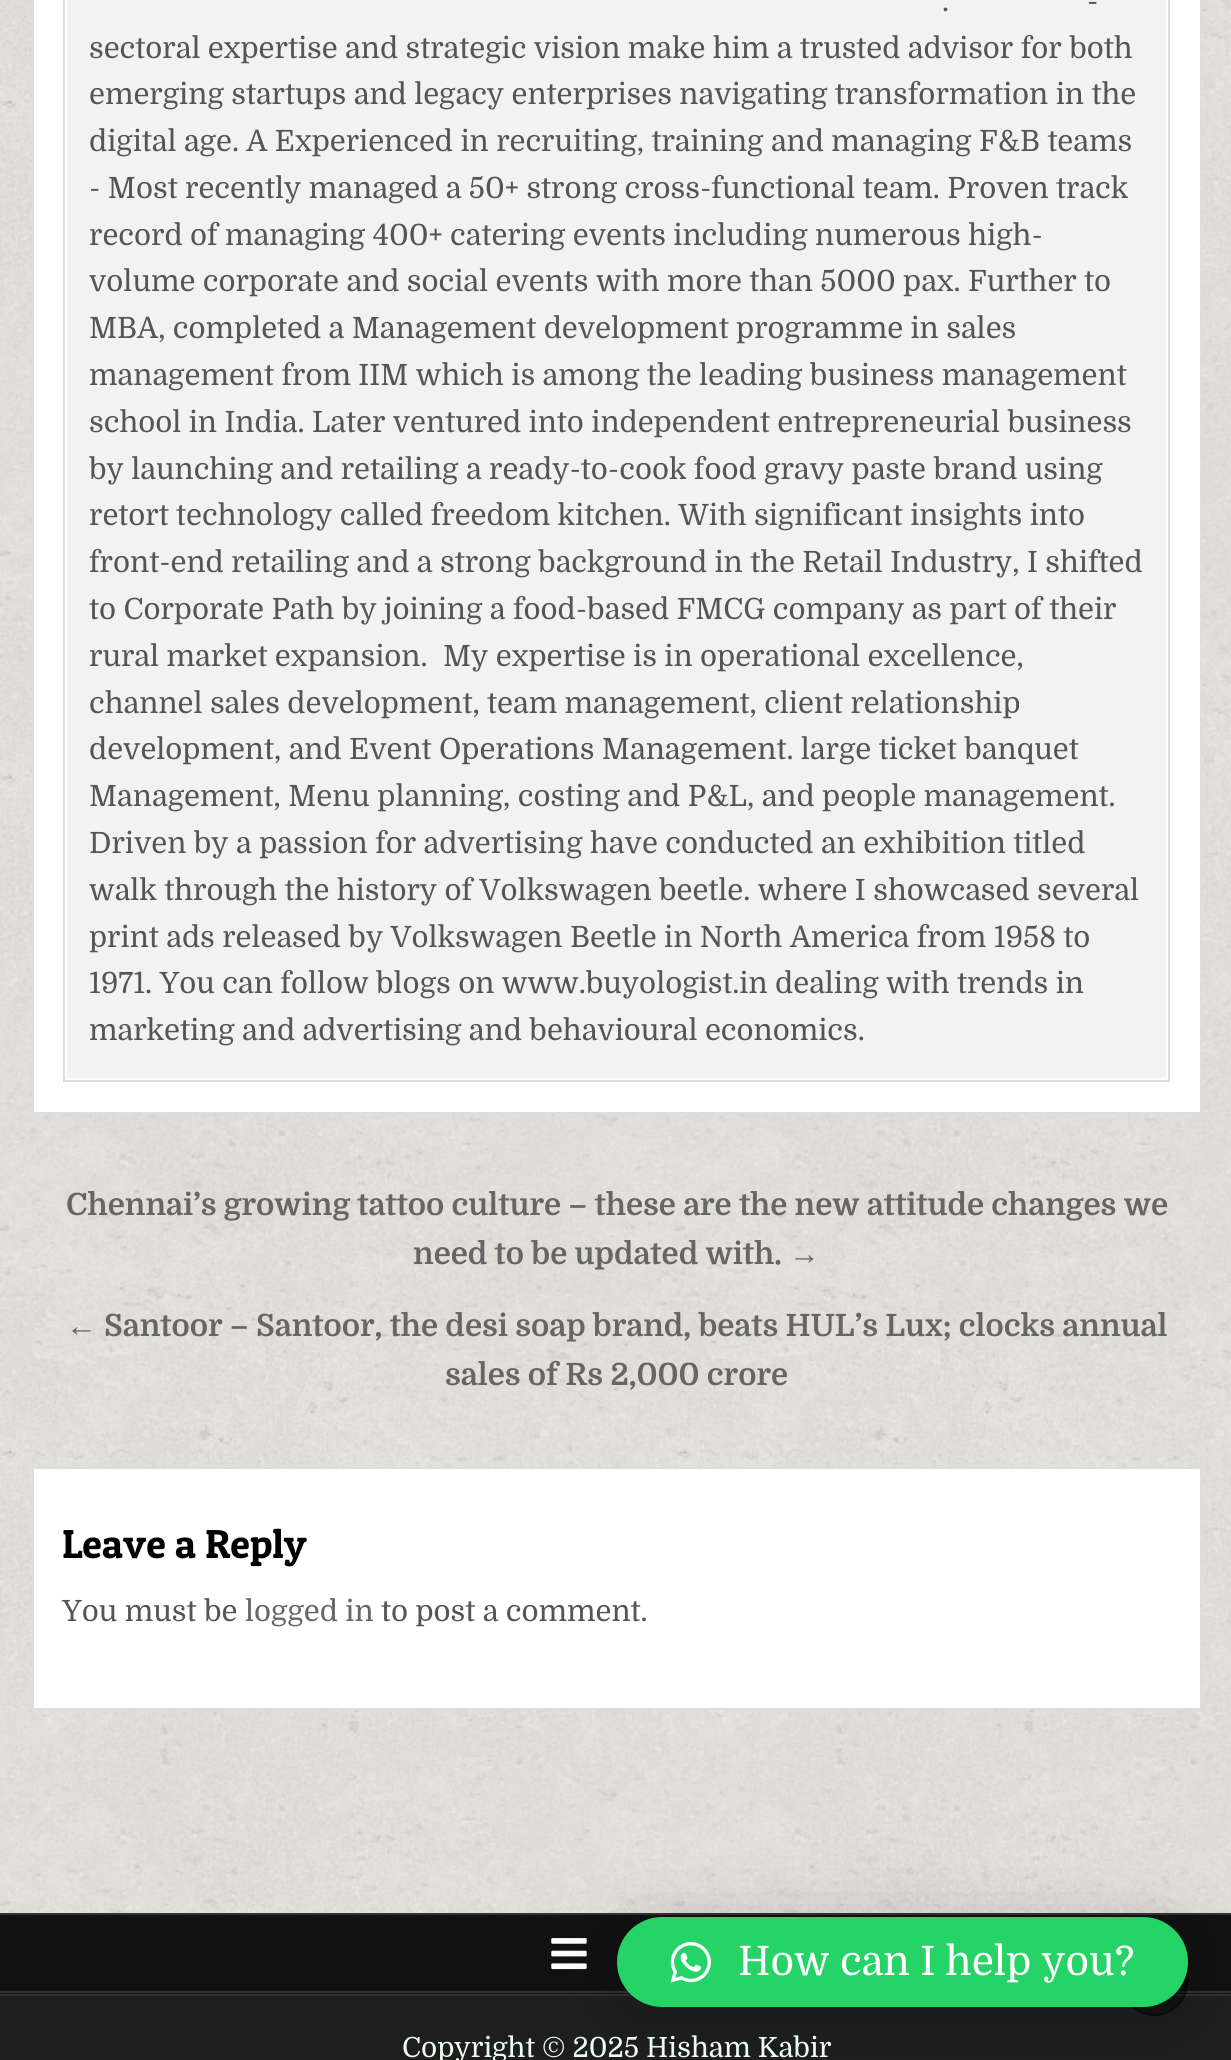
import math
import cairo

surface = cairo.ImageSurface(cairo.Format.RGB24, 1231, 2060)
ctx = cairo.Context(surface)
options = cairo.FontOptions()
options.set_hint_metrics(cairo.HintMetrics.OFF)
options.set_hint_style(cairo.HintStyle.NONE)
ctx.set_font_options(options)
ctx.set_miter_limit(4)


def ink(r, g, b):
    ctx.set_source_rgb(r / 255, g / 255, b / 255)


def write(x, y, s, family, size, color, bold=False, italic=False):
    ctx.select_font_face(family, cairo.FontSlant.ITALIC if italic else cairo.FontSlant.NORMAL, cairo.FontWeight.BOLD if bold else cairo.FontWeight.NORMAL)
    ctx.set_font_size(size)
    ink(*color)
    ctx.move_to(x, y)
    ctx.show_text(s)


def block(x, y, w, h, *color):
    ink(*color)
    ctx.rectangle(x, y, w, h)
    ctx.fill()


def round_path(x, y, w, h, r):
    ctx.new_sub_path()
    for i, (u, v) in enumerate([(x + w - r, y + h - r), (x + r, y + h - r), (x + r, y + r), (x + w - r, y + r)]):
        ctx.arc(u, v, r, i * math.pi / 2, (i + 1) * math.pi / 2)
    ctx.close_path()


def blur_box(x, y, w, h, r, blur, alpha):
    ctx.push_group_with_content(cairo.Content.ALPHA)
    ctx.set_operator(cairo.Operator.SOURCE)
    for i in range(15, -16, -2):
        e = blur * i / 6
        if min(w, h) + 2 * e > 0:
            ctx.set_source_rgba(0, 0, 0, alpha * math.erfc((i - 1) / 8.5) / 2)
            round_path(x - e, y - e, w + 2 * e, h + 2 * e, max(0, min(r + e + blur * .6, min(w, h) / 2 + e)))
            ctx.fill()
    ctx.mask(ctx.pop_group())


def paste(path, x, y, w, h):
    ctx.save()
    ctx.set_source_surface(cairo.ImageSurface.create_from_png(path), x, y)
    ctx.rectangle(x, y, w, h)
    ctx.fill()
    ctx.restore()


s1 = dict(family="Domine", size=29.25, color=(85, 85, 85))
s2 = dict(family="Domine", size=30.7, color=(102, 102, 102), bold=True)
s3 = dict(family="Liberation Sans", size=30.7, color=(102, 102, 102), bold=True)
s4 = dict(family="Patua One", size=40.5, color=(0, 0, 0))
s5 = dict(family="Domine", size=29.25, color=(102, 102, 102))
s6 = dict(family="Domine", size=40.5, color=(255, 255, 255))
s7 = dict(family="Domine", size=27.75, color=(236, 255, 241))

ink(255, 255, 255)
ctx.paint()
paste("pic1.png", 0, 0, 1231, 1913)
ink(255, 255, 255)
ctx.rectangle(33, -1, 1168, 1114)
ctx.fill_preserve()
ink(221, 221, 221)
ctx.stroke()
block(67, 0, 1099, 1078, 242, 242, 242)
ctx.rectangle(64, -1, 1105, 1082)
ink(221, 221, 221)
ctx.stroke()
write(1087, 11, "-", **s1)
write(942, 11, ".", **s1)
write(89, 58, "sectoral expertise and strategic vision make him a trusted advisor for both", **s1)
write(89, 104, "emerging startups and legacy enterprises navigating transformation in the", **s1)
write(89, 151, "digital age. A Experienced in recruiting, training and managing F&B teams", **s1)
write(89, 198, "- Most recently managed a 50+ strong cross-functional team. Proven track", **s1)
write(89, 245, "record of managing 400+ catering events including numerous high-", **s1)
write(89, 291, "volume corporate and social events with more than 5000 pax. Further to", **s1)
write(89, 338, "MBA, completed a Management development programme in sales", **s1)
write(89, 385, "management from IIM which is among the leading business management", **s1)
write(89, 432, "school in India. Later ventured into independent entrepreneurial business", **s1)
write(89, 479, "by launching and retailing a ready-to-cook food gravy paste brand using", **s1)
write(89, 525, "retort technology called freedom kitchen. With significant insights into", **s1)
write(89, 572, "front-end retailing and a strong background in the Retail Industry, I shifted", **s1)
write(89, 619, "to Corporate Path by joining a food-based FMCG company as part of their", **s1)
write(89, 666, "rural market expansion.", **s1)
write(443, 666, "My expertise is in operational excellence,", **s1)
write(89, 713, "channel sales development, team management, client relationship", **s1)
write(89, 759, "development, and Event Operations Management. large ticket banquet", **s1)
write(89, 806, "Management, Menu planning, costing and P&L, and people management.", **s1)
write(89, 853, "Driven by a passion for advertising have conducted an exhibition titled", **s1)
write(89, 900, "walk through the history of Volkswagen beetle. where I showcased several", **s1)
write(89, 947, "print ads released by Volkswagen Beetle in North America from 1958 to", **s1)
write(89, 993, "1971. You can follow blogs on www.buyologist.in dealing with trends in", **s1)
write(89, 1040, "marketing and advertising and behavioural economics.", **s1)
write(66, 1215, "Chennai’s growing tattoo culture – these are the new attitude changes we", **s2)
write(413, 1264, "need to be updated with.", **s2)
write(789, 1264, "→", **s3)
write(66, 1336, "←", **s3)
write(104, 1336, "Santoor – Santoor, the desi soap brand, beats HUL’s Lux; clocks annual", **s2)
write(445, 1385, "sales of Rs 2,000 crore", **s2)
ink(255, 255, 255)
ctx.rectangle(33, 1468, 1168, 241)
ctx.fill_preserve()
ink(221, 221, 221)
ctx.stroke()
write(62, 1558, "Leave a Reply", **s4)
write(62, 1621, "You must be", **s1)
write(245, 1621, "logged in", **s5)
write(381, 1621, "to post a comment.", **s1)
block(0, 1915, 1231, 79, 17, 17, 17)
block(0, 1913, 1231, 2, 51, 51, 51)
block(0, 1991, 1231, 2, 51, 51, 51)
paste("pic2.png", 551, 1938, 36, 32)
block(0, 1996, 1231, 64, 30, 30, 30)
block(0, 1994, 1231, 2, 51, 51, 51)
ctx.set_source_rgba(0, 0, 0, 0.4)
ctx.arc(1154.5, 1982.5, 33.5, 0, 2 * math.pi)
ctx.fill()
ctx.arc(1154.5, 1982.5, 32.5, 0, 2 * math.pi)
ctx.stroke()
ink(0, 0, 0)
blur_box(617, 1922, 571, 90, 45, 36, 0.16)
ink(37, 211, 102)
round_path(617, 1917, 571, 90, 45)
ctx.fill()
paste("pic3.png", 670, 1942, 41, 41)
write(738, 1975, "How can I help you?", **s6)
write(402, 2057, "Copyright © 2025 Hisham Kabir", **s7)
surface.write_to_png("screenshot.png")
